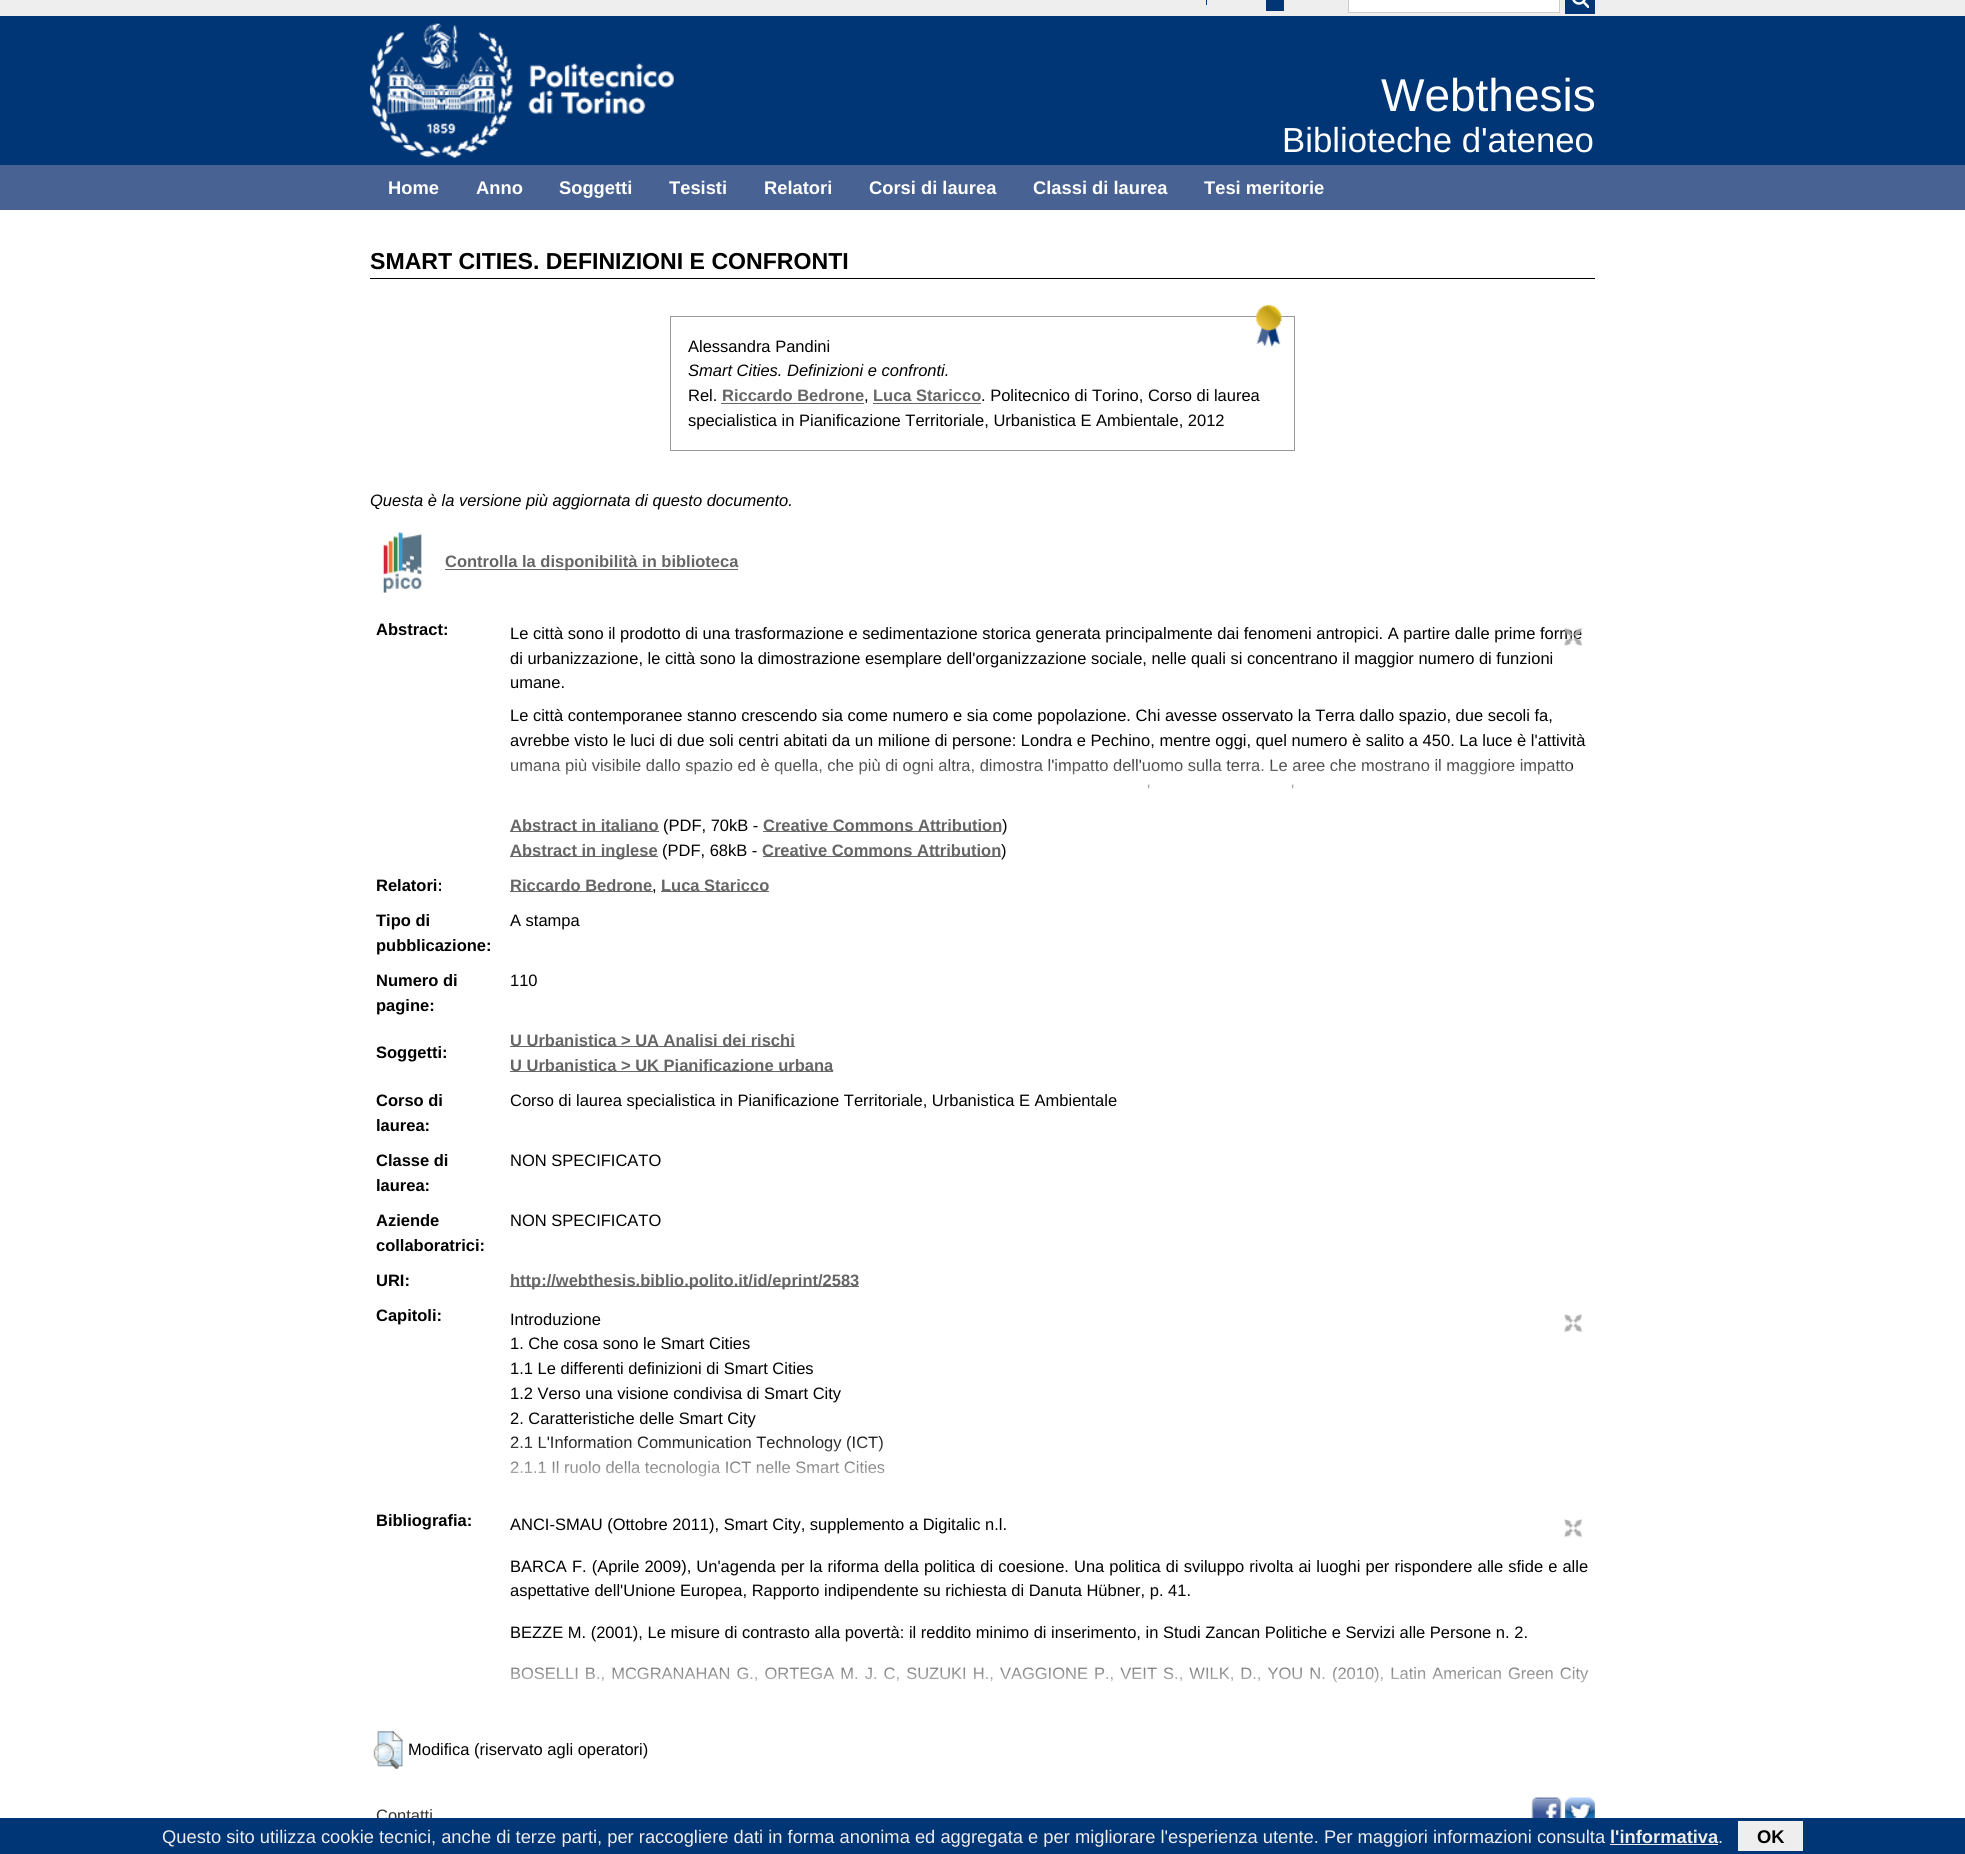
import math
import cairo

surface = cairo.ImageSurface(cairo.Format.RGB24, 1965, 1854)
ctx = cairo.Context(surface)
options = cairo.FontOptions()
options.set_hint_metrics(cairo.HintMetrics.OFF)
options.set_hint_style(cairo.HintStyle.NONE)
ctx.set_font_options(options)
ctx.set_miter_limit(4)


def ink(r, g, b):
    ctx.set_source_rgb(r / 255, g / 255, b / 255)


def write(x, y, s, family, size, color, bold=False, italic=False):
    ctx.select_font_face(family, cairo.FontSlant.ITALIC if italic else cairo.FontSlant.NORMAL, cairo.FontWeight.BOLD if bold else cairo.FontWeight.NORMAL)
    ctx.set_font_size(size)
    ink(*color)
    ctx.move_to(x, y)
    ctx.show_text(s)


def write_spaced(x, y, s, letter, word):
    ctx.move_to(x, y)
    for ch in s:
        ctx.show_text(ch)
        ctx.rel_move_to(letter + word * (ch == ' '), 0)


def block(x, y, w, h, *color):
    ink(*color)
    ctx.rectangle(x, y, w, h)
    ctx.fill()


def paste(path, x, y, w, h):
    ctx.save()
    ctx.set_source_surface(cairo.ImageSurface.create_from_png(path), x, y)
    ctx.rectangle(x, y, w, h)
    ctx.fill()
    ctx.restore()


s1 = dict(family="Liberation Sans", size=46, color=(255, 255, 255))
s2 = dict(family="Liberation Sans", size=34.75, color=(255, 255, 255))
s3 = dict(family="Liberation Sans", size=18.33, color=(255, 255, 255), bold=True)
s4 = dict(family="Liberation Sans", size=23.1, color=(0, 0, 0), bold=True)
s5 = dict(family="Liberation Sans", size=16.5, color=(0, 0, 0))
s6 = dict(family="Liberation Sans", size=16.5, color=(0, 0, 0), italic=True)
s7 = dict(family="Liberation Sans", size=16.5, color=(102, 102, 102), bold=True)
s8 = dict(family="Liberation Sans", size=16.5, color=(0, 0, 0), bold=True)
s9 = dict(family="Liberation Sans", size=16.5, color=(51, 51, 51))
s10 = dict(family="Liberation Sans", size=18.33, color=(238, 238, 238))
s11 = dict(family="Liberation Sans", size=18.33, color=(238, 238, 238), bold=True)
s12 = dict(family="Liberation Sans", size=18.33, color=(0, 0, 0), bold=True)

ink(255, 255, 255)
ctx.paint()
block(0, 0, 1965, 16, 238, 238, 238)
block(1206, 0, 1, 5, 0, 53, 118)
block(1266, 0, 18, 11, 0, 53, 118)
ink(255, 255, 255)
ctx.rectangle(1348.5, -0.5, 211, 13)
ctx.fill_preserve()
ink(204, 204, 204)
ctx.set_line_width(1)
ctx.stroke()
block(1565, 0, 30, 14, 0, 53, 118)
ctx.arc(1579, -2.5, 6, 0, 2 * math.pi)
ink(255, 255, 255)
ctx.set_line_width(2.5)
ctx.stroke()
ctx.save()
ctx.rectangle(1571, 0, 18, 8)
ctx.clip()
ctx.new_path()
ctx.move_to(1584, 2.5)
ctx.line_to(1600, 19)
ctx.stroke()
ctx.restore()
block(0, 16, 1965, 149, 0, 53, 118)
paste("pic1.png", 370, 23, 304, 135)
write(1381, 111, "Webthesis", **s1)
write(1282, 152, "Biblioteche d'ateneo", **s2)
block(0, 165, 1965, 45, 72, 98, 147)
write(388, 194, "Home", **s3)
write(476, 194, "Anno", **s3)
write(559, 194, "Soggetti", **s3)
write(669, 194, "Tesisti", **s3)
write(764, 194, "Relatori", **s3)
write(869, 194, "Corsi di laurea", **s3)
write(1033, 194, "Classi di laurea", **s3)
write(1204, 194, "Tesi meritorie", **s3)
block(370, 278, 1225, 1, 0, 0, 0)
write(370, 269, "SMART CITIES. DEFINIZIONI E CONFRONTI", **s4)
ctx.rectangle(670.5, 316.5, 624, 134)
ink(153, 153, 153)
ctx.set_line_width(1)
ctx.stroke()
write(688, 352, "Alessandra Pandini", **s5)
paste("pic2.png", 1255, 304, 28, 43)
write(688, 376, "Smart Cities. Definizioni e confronti.", **s6)
write(688, 401, "Rel.", **s5)
write(722, 401, "Riccardo Bedrone", **s7)
block(721, 403, 143, 1, 102, 102, 102)
write(864, 401, ",", **s5)
write(873, 401, "Luca Staricco", **s7)
block(873, 403, 108, 1, 102, 102, 102)
write(981, 401, ". Politecnico di Torino, Corso di laurea", **s5)
write(688, 426, "specialistica in Pianificazione Territoriale, Urbanistica E Ambientale, 2012", **s5)
write(370, 506, "Questa è la versione più aggiornata di questo documento.", **s6)
paste("pic3.png", 383, 532, 39, 61)
block(445, 569, 293, 1, 102, 102, 102)
write(445, 567, "Controlla la disponibilità in biblioteca", **s7)
write(376, 635, "Abstract:", **s8)
write(510, 639, "Le città sono il prodotto di una trasformazione e sedimentazione storica generata principalmente dai fenomeni antropici. A partire dalle prime forme", **s5)
write(510, 664, "di urbanizzazione, le città sono la dimostrazione esemplare dell'organizzazione sociale, nelle quali si concentrano il maggior numero di funzioni", **s5)
write(510, 688, "umane.", **s5)
paste("pic4.png", 1564, 627, 19, 19)
write(510, 721, "Le città contemporanee stanno crescendo sia come numero e sia come popolazione. Chi avesse osservato la Terra dallo spazio, due secoli fa,", **s5)
write(510, 746, "avrebbe visto le luci di due soli centri abitati da un milione di persone: Londra e Pechino, mentre oggi, quel numero è salito a 450. La luce è l'attività", **s5)
write(510, 771, "umana più visibile dallo spazio ed è quella, che più di ogni altra, dimostra l'impatto dell'uomo sulla terra. Le aree che mostrano il maggiore impatto", **s5)
write(1147, 796, "'", **s5)
write(1291, 796, "'", **s5)
paste("pic5.png", 511, 748, 1061, 61)
block(510, 831, 149, 1, 102, 102, 102)
write(510, 831, "Abstract in italiano", **s7)
write(663, 831, "(PDF, 70kB -", **s5)
block(763, 831, 238, 1, 102, 102, 102)
write(763, 831, "Creative Commons Attribution", **s7)
write(1002, 831, ")", **s5)
block(510, 856, 148, 1, 102, 102, 102)
write(510, 856, "Abstract in inglese", **s7)
write(662, 856, "(PDF, 68kB -", **s5)
block(763, 856, 238, 1, 102, 102, 102)
write(762, 856, "Creative Commons Attribution", **s7)
write(1001, 856, ")", **s5)
write(376, 891, "Relatori:", **s8)
block(510, 891, 143, 1, 102, 102, 102)
write(510, 891, "Riccardo Bedrone", **s7)
write(652, 891, ",", **s5)
block(661, 891, 108, 1, 102, 102, 102)
write(661, 891, "Luca Staricco", **s7)
write(376, 926, "Tipo di", **s8)
write(376, 951, "pubblicazione:", **s8)
write(510, 926, "A stampa", **s5)
write(376, 986, "Numero di", **s8)
write(376, 1011, "pagine:", **s8)
write(510, 986, "110", **s5)
write(376, 1058, "Soggetti:", **s8)
block(510, 1046, 285, 1, 102, 102, 102)
write(510, 1046, "U Urbanistica > UA Analisi dei rischi", **s7)
block(510, 1071, 323, 1, 102, 102, 102)
write(510, 1071, "U Urbanistica > UK Pianificazione urbana", **s7)
write(376, 1106, "Corso di", **s8)
write(376, 1131, "laurea:", **s8)
write(510, 1106, "Corso di laurea specialistica in Pianificazione Territoriale, Urbanistica E Ambientale", **s5)
write(376, 1166, "Classe di", **s8)
write(376, 1191, "laurea:", **s8)
write(510, 1166, "NON SPECIFICATO", **s5)
write(376, 1226, "Aziende", **s8)
write(376, 1251, "collaboratrici:", **s8)
write(510, 1226, "NON SPECIFICATO", **s5)
write(376, 1286, "URI:", **s8)
block(510, 1286, 349, 1, 102, 102, 102)
write(510, 1286, "http://webthesis.biblio.polito.it/id/eprint/2583", **s7)
write(376, 1321, "Capitoli:", **s8)
write(510, 1325, "Introduzione", **s5)
paste("pic6.png", 1564, 1314, 19, 19)
write(510, 1349, "1. Che cosa sono le Smart Cities", **s5)
write(510, 1374, "1.1 Le differenti definizioni di Smart Cities", **s5)
write(510, 1399, "1.2 Verso una visione condivisa di Smart City", **s5)
write(510, 1424, "2. Caratteristiche delle Smart City", **s5)
write(510, 1448, "2.1 L'Information Communication Technology (ICT)", **s5)
write(510, 1473, "2.1.1 Il ruolo della tecnologia ICT nelle Smart Cities", **s5)
paste("pic7.png", 510, 1436, 375, 59)
write(376, 1526, "Bibliografia:", **s8)
write(510, 1530, "ANCI-SMAU (Ottobre 2011), Smart City, supplemento a Digitalic n.l.", **s5)
paste("pic6.png", 1564, 1519, 19, 19)
write_spaced(510, 1572, "BARCA F. (Aprile 2009), Un'agenda per la riforma della politica di coesione. Una politica di sviluppo rivolta ai luoghi per rispondere alle sfide e alle", 0, 0.5)
write(510, 1596, "aspettative dell'Unione Europea, Rapporto indipendente su richiesta di Danuta Hübner, p. 41.", **s5)
write(510, 1638, "BEZZE M. (2001), Le misure di contrasto alla povertà: il reddito minimo di inserimento, in Studi Zancan Politiche e Servizi alle Persone n. 2.", **s5)
write_spaced(510, 1679, "BOSELLI B., MCGRANAHAN G., ORTEGA M. J. C, SUZUKI H., VAGGIONE P., VEIT S., WILK, D., YOU N. (2010), Latin American Green City", 0, 1.5)
paste("pic8.png", 511, 1639, 1078, 61)
paste("pic9.png", 373, 1731, 30, 38)
write(408, 1755, "Modifica (riservato agli operatori)", **s5)
write(376, 1821, "Contatti", **s9)
paste("pic10.png", 1531, 1797, 31, 21)
paste("pic11.png", 1565, 1797, 30, 21)
block(0, 1818, 1965, 36, 0, 53, 118)
write(162, 1843, "Questo sito utilizza cookie tecnici, anche di terze parti, per raccogliere dati in forma anonima ed aggregata e per migliorare l'esperienza utente. Per maggiori informazioni consulta", **s10)
write(1610, 1843, "l'informativa", **s11)
block(1610, 1844, 108, 1, 238, 238, 238)
write(1718, 1843, ".", **s10)
block(1738, 1821, 65, 30, 238, 238, 238)
write(1757, 1843, "OK", **s12)
surface.write_to_png("screenshot.png")
